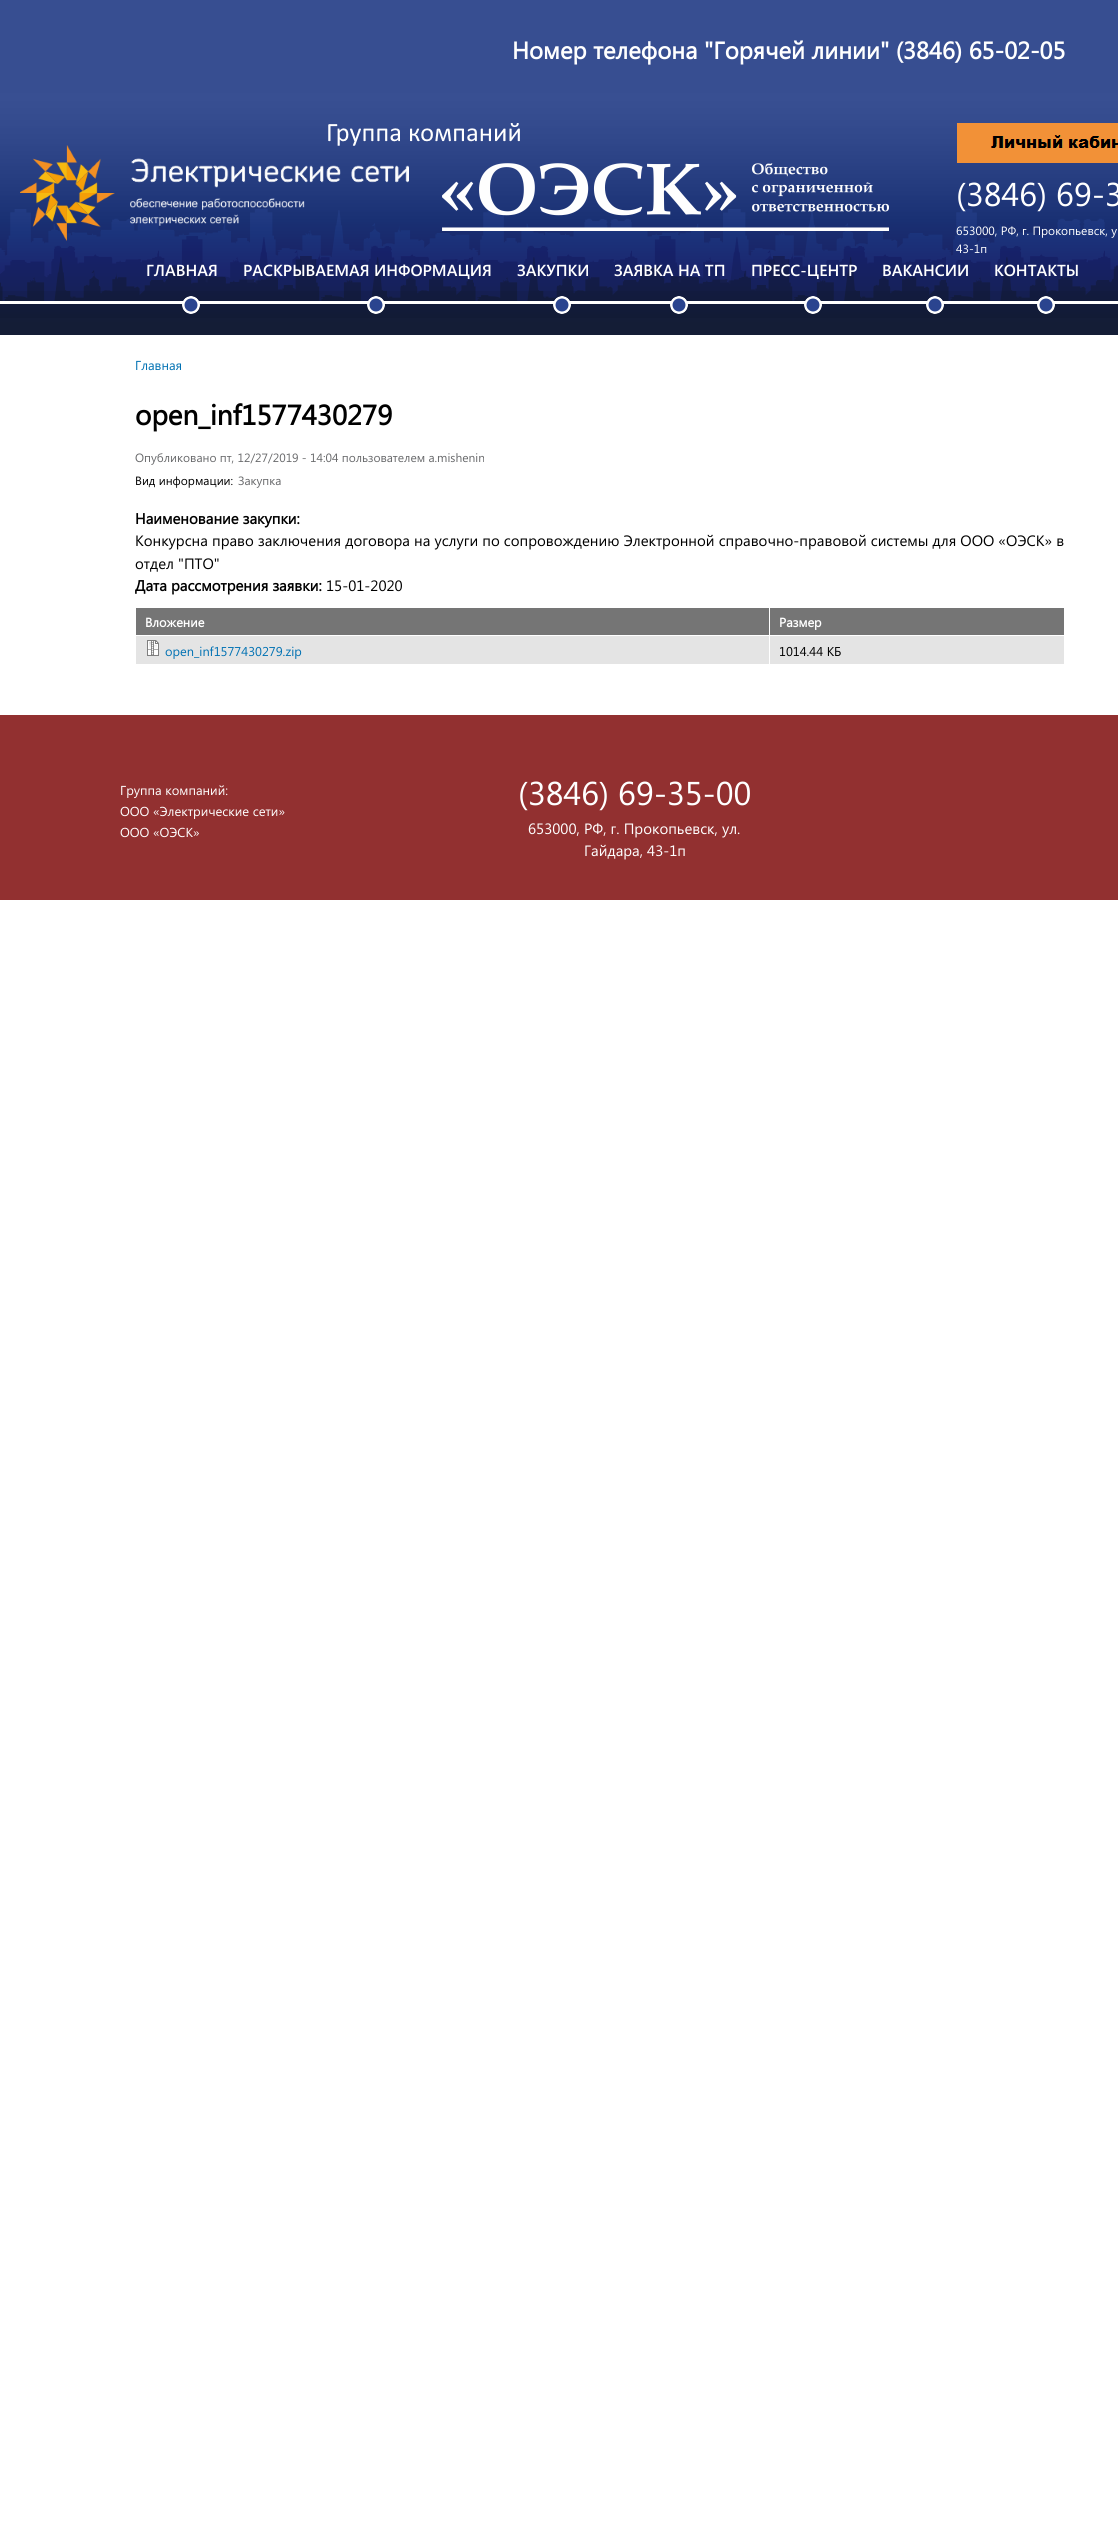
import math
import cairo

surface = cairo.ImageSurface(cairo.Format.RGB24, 1118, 2547)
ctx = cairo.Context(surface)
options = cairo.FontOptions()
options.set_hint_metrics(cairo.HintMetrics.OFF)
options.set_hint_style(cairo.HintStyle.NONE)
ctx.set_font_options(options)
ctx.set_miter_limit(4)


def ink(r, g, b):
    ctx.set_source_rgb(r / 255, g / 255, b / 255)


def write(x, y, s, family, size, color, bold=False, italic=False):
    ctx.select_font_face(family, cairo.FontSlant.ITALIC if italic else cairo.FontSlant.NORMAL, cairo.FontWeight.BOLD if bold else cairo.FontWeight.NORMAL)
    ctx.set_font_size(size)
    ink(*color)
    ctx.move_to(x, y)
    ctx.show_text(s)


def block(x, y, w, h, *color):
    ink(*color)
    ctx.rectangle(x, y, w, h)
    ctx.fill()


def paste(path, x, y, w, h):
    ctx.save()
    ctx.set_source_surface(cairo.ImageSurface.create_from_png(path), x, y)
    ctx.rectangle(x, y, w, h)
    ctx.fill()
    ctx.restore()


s1 = dict(family="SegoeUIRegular", size=24, color=(255, 255, 255), bold=True)
s2 = dict(family="SegoeUIRegular", size=33, color=(255, 255, 255))
s3 = dict(family="SegoeUIRegular", size=12, color=(255, 255, 255))
s4 = dict(family="Segoe UI SemiBold", size=16, color=(255, 255, 255))
s5 = dict(family="SegoeUIRegular", size=13, color=(0, 113, 179))
s6 = dict(family="SegoeUIRegular", size=28, color=(0, 0, 0), bold=True)
s7 = dict(family="SegoeUIRegular", size=12, color=(104, 105, 107))
s8 = dict(family="SegoeUIRegular", size=12, color=(0, 0, 0))
s9 = dict(family="SegoeUIRegular", size=15, color=(0, 0, 0), bold=True)
s10 = dict(family="SegoeUIRegular", size=15, color=(0, 0, 0))
s11 = dict(family="SegoeUIRegular", size=12.8, color=(255, 255, 255), bold=True)
s12 = dict(family="SegoeUIRegular", size=12.8, color=(0, 113, 179))
s13 = dict(family="SegoeUIRegular", size=12.8, color=(0, 0, 0))
s14 = dict(family="SegoeUIRegular", size=13, color=(255, 255, 255))
s15 = dict(family="SegoeUIRegular", size=15, color=(255, 255, 255))

ink(255, 255, 255)
ctx.paint()
block(0, 0, 1118, 93, 55, 78, 145)
write(512, 59, "Номер телефона \"Горячей линии\" (3846) 65-02-05", **s1)
paste("pic1.png", 0, 93, 1118, 242)
paste("pic2.png", 20, 123, 869, 118)
paste("pic3.png", 957, 123, 161, 40)
write(956, 206, "(3846) 69-3", **s2)
write(956, 235, "653000, РФ, г. Прокопьевск, у", **s3)
write(956, 253, "43-1п", **s3)
block(0, 301, 1118, 3, 255, 255, 255)
write(146, 276, "ГЛАВНАЯ", **s4)
paste("pic4.png", 182, 296, 18, 18)
write(243, 276, "РАСКРЫВАЕМАЯ ИНФОРМАЦИЯ", **s4)
paste("pic5.png", 367, 296, 18, 18)
write(517, 276, "ЗАКУПКИ", **s4)
paste("pic6.png", 553, 296, 18, 18)
write(614, 276, "ЗАЯВКА НА ТП", **s4)
paste("pic4.png", 670, 296, 18, 18)
write(751, 276, "ПРЕСС-ЦЕНТР", **s4)
paste("pic7.png", 804, 296, 18, 18)
write(882, 276, "ВАКАНСИИ", **s4)
paste("pic4.png", 926, 296, 18, 18)
write(994, 276, "КОНТАКТЫ", **s4)
paste("pic4.png", 1037, 296, 18, 18)
write(135, 370, "Главная", **s5)
write(135, 425, "open_inf1577430279", **s6)
write(135, 462, "Опубликовано пт, 12/27/2019 - 14:04 пользователем a.mishenin", **s7)
write(135, 485, "Вид информации:", **s8)
write(238, 485, "Закупка", **s7)
write(135, 524, "Наименование закупки:", **s9)
write(135, 546, "Конкурсна право заключения договора на услуги по сопровождению Электронной справочно-правовой системы для ООО «ОЭСК» в", **s10)
write(135, 569, "отдел \"ПТО\"", **s10)
write(135, 591, "Дата рассмотрения заявки:", **s9)
write(326, 591, "15-01-2020", **s10)
block(136, 608, 633, 27, 117, 117, 117)
write(145, 627, "Вложение", **s11)
block(770, 608, 294, 27, 117, 117, 117)
write(779, 627, "Размер", **s11)
block(136, 636, 928, 28, 228, 228, 228)
paste("pic8.png", 147, 640, 12, 16)
write(165, 656, "open_inf1577430279.zip", **s12)
block(769, 635, 1, 30, 255, 255, 255)
write(779, 656, "1014.44 КБ", **s13)
block(0, 715, 1118, 185, 146, 48, 48)
write(120, 795, "Группа компаний:", **s14)
write(518, 805, "(3846) 69-35-00", **s2)
write(528, 834, "653000, РФ, г. Прокопьевск, ул.", **s15)
write(584, 856, "Гайдара, 43-1п", **s15)
write(120, 816, "ООО «Электрические сети»", **s14)
write(120, 837, "ООО «ОЭСК»", **s14)
surface.write_to_png("screenshot.png")
